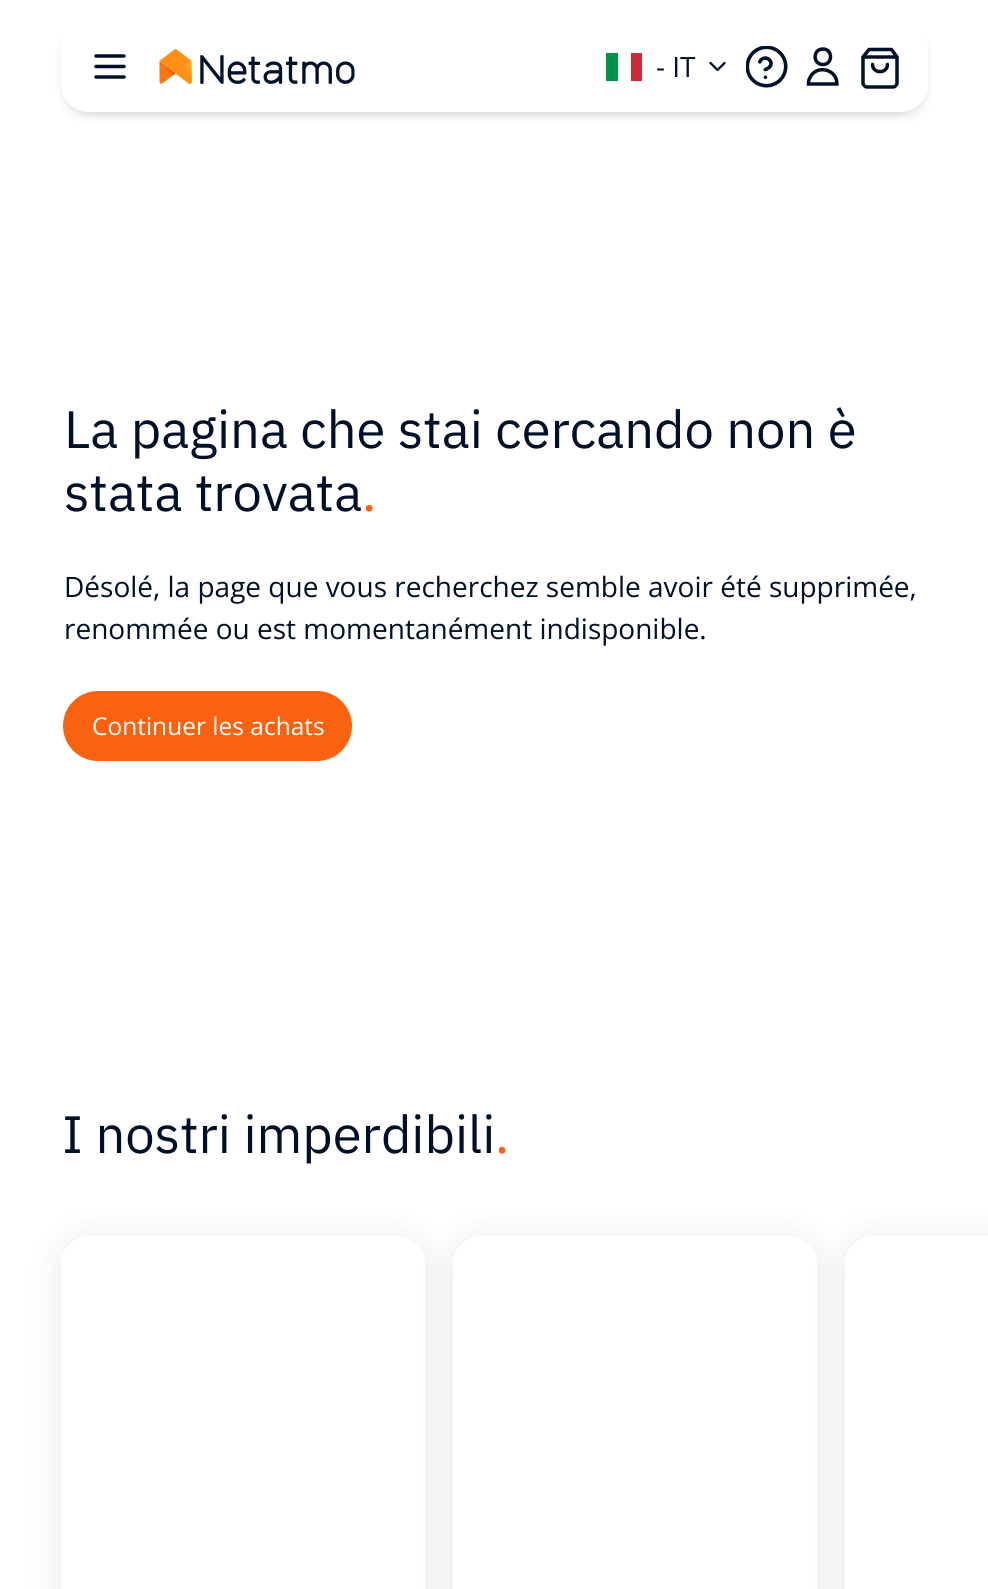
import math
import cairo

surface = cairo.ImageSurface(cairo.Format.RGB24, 988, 1589)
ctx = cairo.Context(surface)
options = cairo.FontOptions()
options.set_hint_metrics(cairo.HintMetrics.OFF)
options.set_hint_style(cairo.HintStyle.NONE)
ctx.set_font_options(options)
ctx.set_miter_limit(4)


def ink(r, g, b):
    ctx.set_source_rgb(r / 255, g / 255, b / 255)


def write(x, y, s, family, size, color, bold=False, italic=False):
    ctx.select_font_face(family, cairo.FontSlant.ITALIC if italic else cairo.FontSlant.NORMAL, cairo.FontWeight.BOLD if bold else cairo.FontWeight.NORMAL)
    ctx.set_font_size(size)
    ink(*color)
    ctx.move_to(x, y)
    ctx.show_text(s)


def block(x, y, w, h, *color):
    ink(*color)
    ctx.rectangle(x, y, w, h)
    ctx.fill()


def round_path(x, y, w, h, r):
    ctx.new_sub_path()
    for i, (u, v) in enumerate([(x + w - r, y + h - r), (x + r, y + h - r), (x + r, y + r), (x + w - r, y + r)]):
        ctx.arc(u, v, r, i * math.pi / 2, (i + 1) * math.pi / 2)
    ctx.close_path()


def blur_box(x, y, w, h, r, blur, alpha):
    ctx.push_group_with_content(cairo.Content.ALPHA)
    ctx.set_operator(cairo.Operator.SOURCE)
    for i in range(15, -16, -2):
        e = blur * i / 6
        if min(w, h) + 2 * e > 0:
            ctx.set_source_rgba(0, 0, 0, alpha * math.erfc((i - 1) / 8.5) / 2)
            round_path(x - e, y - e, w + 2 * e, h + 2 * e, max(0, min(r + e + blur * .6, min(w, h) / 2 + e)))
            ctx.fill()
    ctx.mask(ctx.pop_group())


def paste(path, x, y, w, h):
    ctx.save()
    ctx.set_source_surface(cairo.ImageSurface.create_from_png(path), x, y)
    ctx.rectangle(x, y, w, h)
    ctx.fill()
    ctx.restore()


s1 = dict(family="Open Sans", size=28, color=(0, 16, 41))
s2 = dict(family="IBM Plex Sans", size=52.5, color=(0, 16, 41))
s3 = dict(family="IBM Plex Sans", size=52.5, color=(249, 98, 16))
s4 = dict(family="Open Sans", size=24.5, color=(255, 255, 255))

ink(255, 255, 255)
ctx.paint()
ctx.save()
ctx.set_fill_rule(cairo.FillRule.EVEN_ODD)
ctx.new_path()
ctx.move_to(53, 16)
ctx.line_to(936, 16)
ctx.line_to(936, 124)
ctx.line_to(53, 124)
ctx.close_path()
ctx.move_to(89, 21)
ctx.line_to(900, 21)
ctx.curve_to(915.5, 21, 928, 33.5, 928, 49)
ctx.line_to(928, 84)
ctx.curve_to(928, 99.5, 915.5, 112, 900, 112)
ctx.line_to(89, 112)
ctx.curve_to(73.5, 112, 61, 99.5, 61, 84)
ctx.line_to(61, 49)
ctx.curve_to(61, 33.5, 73.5, 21, 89, 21)
ctx.close_path()
ctx.clip()
ink(0, 0, 0)
blur_box(65, 28, 859, 84, 25, 3.5, 0.1)
ctx.restore()
ctx.save()
ctx.set_fill_rule(cairo.FillRule.EVEN_ODD)
ctx.new_path()
ctx.move_to(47, 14)
ctx.line_to(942, 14)
ctx.line_to(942, 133)
ctx.line_to(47, 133)
ctx.close_path()
ctx.move_to(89, 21)
ctx.line_to(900, 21)
ctx.curve_to(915.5, 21, 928, 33.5, 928, 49)
ctx.line_to(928, 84)
ctx.curve_to(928, 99.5, 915.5, 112, 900, 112)
ctx.line_to(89, 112)
ctx.curve_to(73.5, 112, 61, 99.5, 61, 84)
ctx.line_to(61, 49)
ctx.curve_to(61, 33.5, 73.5, 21, 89, 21)
ctx.close_path()
ctx.clip()
ink(0, 0, 0)
blur_box(63, 30, 863, 87, 26, 5, 0.1)
ctx.restore()
ctx.set_source_rgba(1, 1, 1, 0.6)
round_path(61, 21, 867, 91, 28)
ctx.fill()
ctx.new_path()
ctx.move_to(124, 56)
ctx.line_to(96, 56)
ctx.move_to(124, 66.5)
ctx.line_to(96, 66.5)
ctx.move_to(124, 77)
ctx.line_to(96, 77)
ink(0, 16, 41)
ctx.set_line_width(3.5)
ctx.set_line_cap(cairo.LineCap.ROUND)
ctx.set_line_join(cairo.LineJoin.ROUND)
ctx.stroke()
paste("pic1.png", 159, 49, 196, 35)
block(606, 53, 12, 28, 0, 146, 70)
block(631, 53, 11, 28, 206, 43, 55)
write(656, 77, "- IT", **s1)
ctx.new_path()
ctx.move_to(710.5, 63)
ctx.line_to(717.5, 70)
ctx.line_to(724.5, 63)
ctx.set_line_width(2.3)
ctx.stroke()
paste("pic2.png", 746, 46, 42, 42)
ctx.new_path()
ctx.move_to(837, 84)
ctx.line_to(808.5, 84)
ctx.curve_to(808.5, 81.5, 808.5, 80.5, 809.5, 78.5)
ctx.curve_to(815.5, 64, 837, 68.5, 837, 84)
ctx.close_path()
ctx.move_to(823, 64.5)
ctx.curve_to(812.5, 64.5, 812.5, 49, 823, 49)
ctx.curve_to(833, 49, 833, 64.5, 823, 64.5)
ctx.close_path()
ctx.set_line_width(3.5)
ctx.set_line_cap(cairo.LineCap.BUTT)
ctx.set_line_join(cairo.LineJoin.MITER)
ctx.stroke()
ctx.new_path()
ctx.move_to(863, 57)
ctx.line_to(869, 49.5)
ctx.line_to(891.5, 49.5)
ctx.line_to(897, 57)
ctx.move_to(863, 57)
ctx.line_to(863, 83)
ctx.curve_to(863, 85, 865, 87, 867, 87)
ctx.line_to(893, 87)
ctx.curve_to(895, 87, 897, 85, 897, 83)
ctx.line_to(897, 57)
ctx.move_to(863, 57)
ctx.line_to(897, 57)
ctx.move_to(887.5, 64.5)
ctx.curve_to(887.5, 74, 872.5, 74, 872.5, 64.5)
ctx.set_line_cap(cairo.LineCap.ROUND)
ctx.set_line_join(cairo.LineJoin.ROUND)
ctx.stroke()
write(64, 448, "La pagina che stai cercando non è", **s2)
write(64, 511, "stata trovata", **s2)
write(362, 511, ".", **s3)
write(64, 597, "Désolé, la page que vous recherchez semble avoir été supprimée,", **s1)
write(64, 639, "renommée ou est momentanément indisponible.", **s1)
ink(249, 98, 16)
round_path(63, 691, 289, 70, 35)
ctx.fill()
write(92, 735, "Continuer les achats", **s4)
write(62, 1153, "I nostri imperdibili", **s2)
write(495, 1153, ".", **s3)
ink(0, 16, 41)
blur_box(61, 1239, 364, 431, 28, 17.5, 0.1)
ink(255, 255, 255)
round_path(61, 1236, 364, 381, 28)
ctx.fill()
ink(0, 16, 41)
blur_box(453, 1239, 364, 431, 28, 17.5, 0.1)
ink(255, 255, 255)
round_path(453, 1236, 364, 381, 28)
ctx.fill()
ink(0, 16, 41)
blur_box(845, 1239, 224, 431, 28, 17.5, 0.1)
ink(255, 255, 255)
ctx.new_path()
ctx.move_to(873, 1236)
ctx.line_to(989, 1236)
ctx.line_to(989, 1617)
ctx.line_to(873, 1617)
ctx.curve_to(857.5, 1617, 845, 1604.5, 845, 1589)
ctx.line_to(845, 1264)
ctx.curve_to(845, 1248.5, 857.5, 1236, 873, 1236)
ctx.close_path()
ctx.fill()
surface.write_to_png("screenshot.png")
